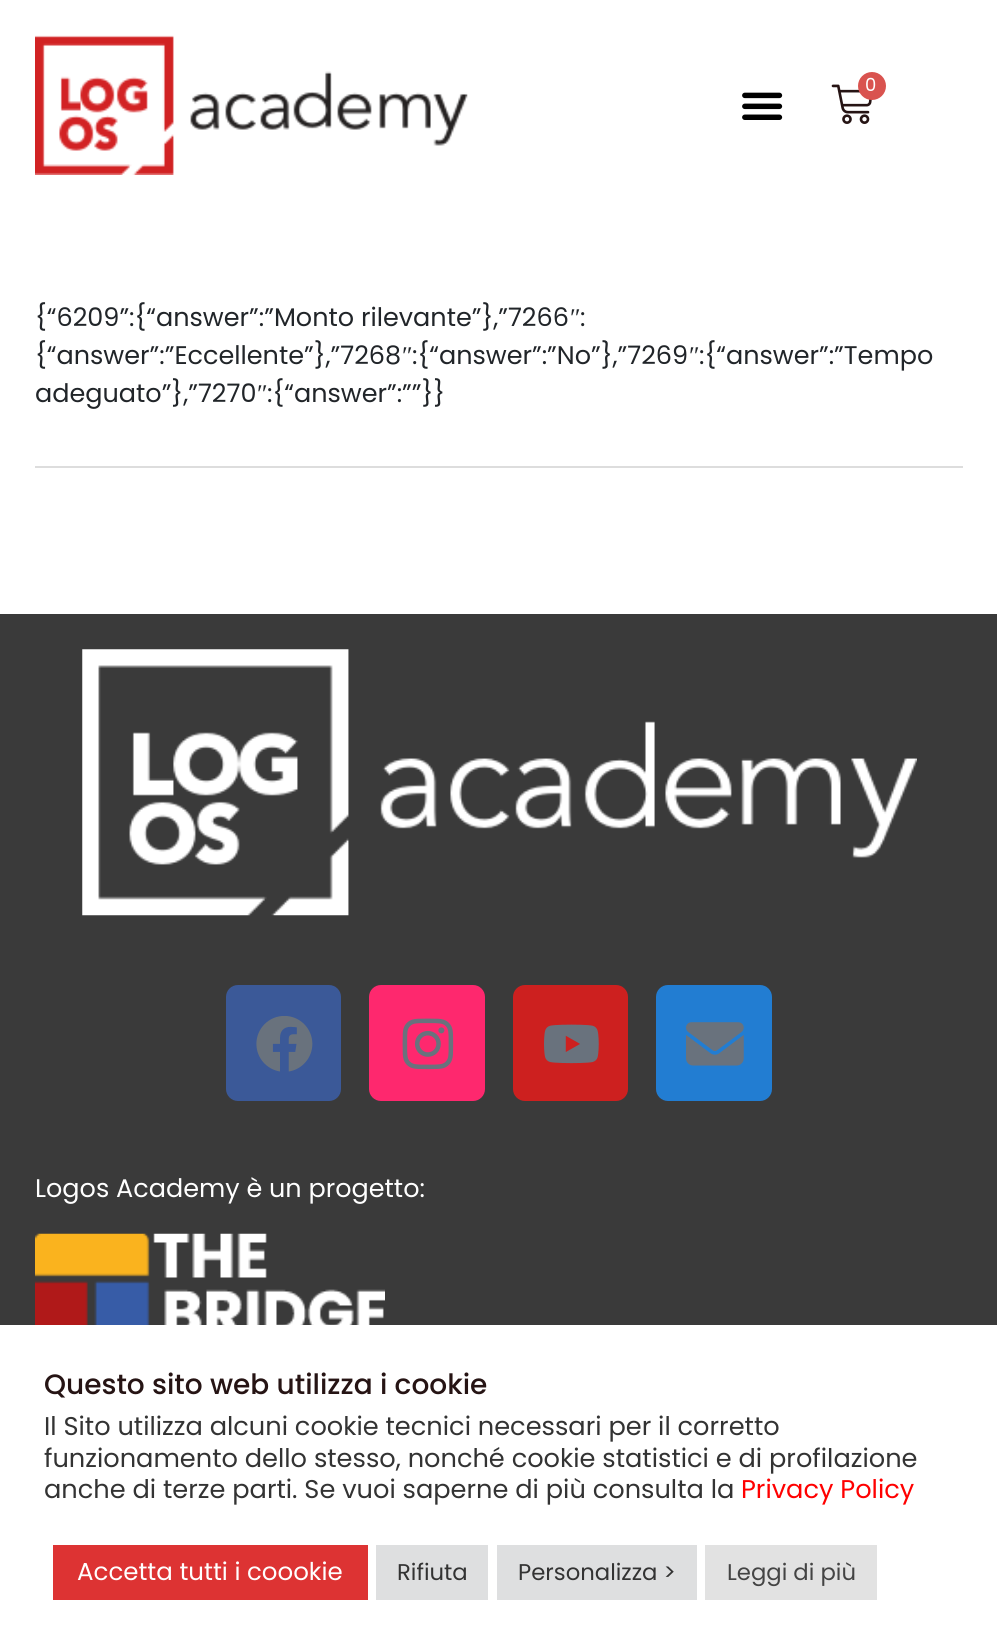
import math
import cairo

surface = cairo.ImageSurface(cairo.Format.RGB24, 997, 1643)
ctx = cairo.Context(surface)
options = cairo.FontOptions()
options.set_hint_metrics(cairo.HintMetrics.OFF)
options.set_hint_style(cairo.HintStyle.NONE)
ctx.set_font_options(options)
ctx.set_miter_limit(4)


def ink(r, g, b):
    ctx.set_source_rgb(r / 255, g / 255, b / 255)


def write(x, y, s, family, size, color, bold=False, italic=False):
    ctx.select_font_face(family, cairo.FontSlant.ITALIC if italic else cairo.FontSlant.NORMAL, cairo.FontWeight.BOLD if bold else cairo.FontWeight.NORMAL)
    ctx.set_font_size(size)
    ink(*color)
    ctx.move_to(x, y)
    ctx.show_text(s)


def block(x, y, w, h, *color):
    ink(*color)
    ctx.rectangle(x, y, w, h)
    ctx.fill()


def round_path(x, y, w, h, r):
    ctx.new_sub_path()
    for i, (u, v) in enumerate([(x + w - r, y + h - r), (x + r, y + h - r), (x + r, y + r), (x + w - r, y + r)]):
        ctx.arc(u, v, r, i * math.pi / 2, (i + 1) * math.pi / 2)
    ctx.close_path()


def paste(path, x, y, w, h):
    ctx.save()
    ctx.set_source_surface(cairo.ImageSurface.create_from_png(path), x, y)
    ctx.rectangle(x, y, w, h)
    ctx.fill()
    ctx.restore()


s1 = dict(family="Poppins", size=18, color=(255, 255, 255))
s2 = dict(family="Poppins", size=25.5, color=(33, 37, 41))
s3 = dict(family="Liberation Serif", size=25.5, color=(33, 37, 41))
s4 = dict(family="Poppins", size=25.5, color=(255, 255, 255))
s5 = dict(family="Poppins Medium", size=28, color=(38, 20, 20))
s6 = dict(family="Poppins", size=25.65, color=(51, 51, 51))
s7 = dict(family="Poppins", size=25.65, color=(255, 0, 0))
s8 = dict(family="Poppins", size=24.5, color=(255, 255, 255))
s9 = dict(family="Poppins", size=22.75, color=(51, 51, 51))
s10 = dict(family="Poppins", size=22.75, color=(68, 68, 68))

ink(255, 255, 255)
ctx.paint()
paste("pic1.png", 35, 35, 433, 140)
paste("pic2.png", 831, 84, 41, 40)
ink(217, 83, 79)
ctx.arc(872, 86, 14, 0, 2 * math.pi)
ctx.fill()
write(865, 91, "0", **s1)
paste("pic3.png", 742, 92, 41, 28)
write(35, 326, "{“6209”:{“answer”:”Monto rilevante”},”7266", **s2)
write(570, 326, "″", **s3)
write(580, 326, ":", **s2)
write(35, 364, "{“answer”:”Eccellente”},”7268", **s2)
write(402, 364, "″", **s3)
write(412, 364, ":{“answer”:”No”},”7269", **s2)
write(689, 364, "″", **s3)
write(699, 364, ":{“answer”:”Tempo", **s2)
write(35, 402, "adeguato”},”7270", **s2)
write(257, 402, "″", **s3)
write(267, 402, ":{“answer”:””}}", **s2)
block(35, 466, 928, 2, 221, 221, 221)
block(0, 614, 997, 711, 58, 58, 58)
paste("pic4.png", 82, 649, 835, 267)
ink(59, 89, 152)
round_path(226, 985, 115, 116, 12)
ctx.fill()
paste("pic5.png", 256, 1016, 57, 56)
ink(254, 40, 110)
round_path(369, 985, 116, 116, 12)
ctx.fill()
paste("pic6.png", 402, 1018, 52, 52)
ink(205, 32, 31)
round_path(513, 985, 115, 116, 12)
ctx.fill()
paste("pic7.png", 544, 1024, 55, 40)
ink(34, 125, 210)
round_path(656, 985, 116, 116, 12)
ctx.fill()
paste("pic8.png", 686, 1022, 58, 44)
write(35, 1197, "Logos Academy è un progetto:", **s4)
paste("pic9.png", 35, 1233, 350, 92)
write(44, 1394, "Questo sito web utilizza i cookie", **s5)
write(44, 1435, "Il Sito utilizza alcuni cookie tecnici necessari per il corretto", **s6)
write(44, 1467, "funzionamento dello stesso, nonché cookie statistici e di profilazione", **s6)
write(44, 1498, "anche di terze parti. Se vuoi saperne di più consulta la", **s6)
write(741, 1498, "Privacy Policy", **s7)
block(53, 1545, 315, 55, 221, 51, 51)
write(77, 1580, "Accetta tutti i coookie", **s8)
block(376, 1545, 112, 55, 222, 223, 224)
write(397, 1580, "Rifiuta", **s9)
block(497, 1545, 200, 55, 222, 223, 224)
write(518, 1580, "Personalizza >", **s9)
block(705, 1545, 172, 55, 226, 226, 226)
write(727, 1580, "Leggi di più", **s10)
surface.write_to_png("screenshot.png")
